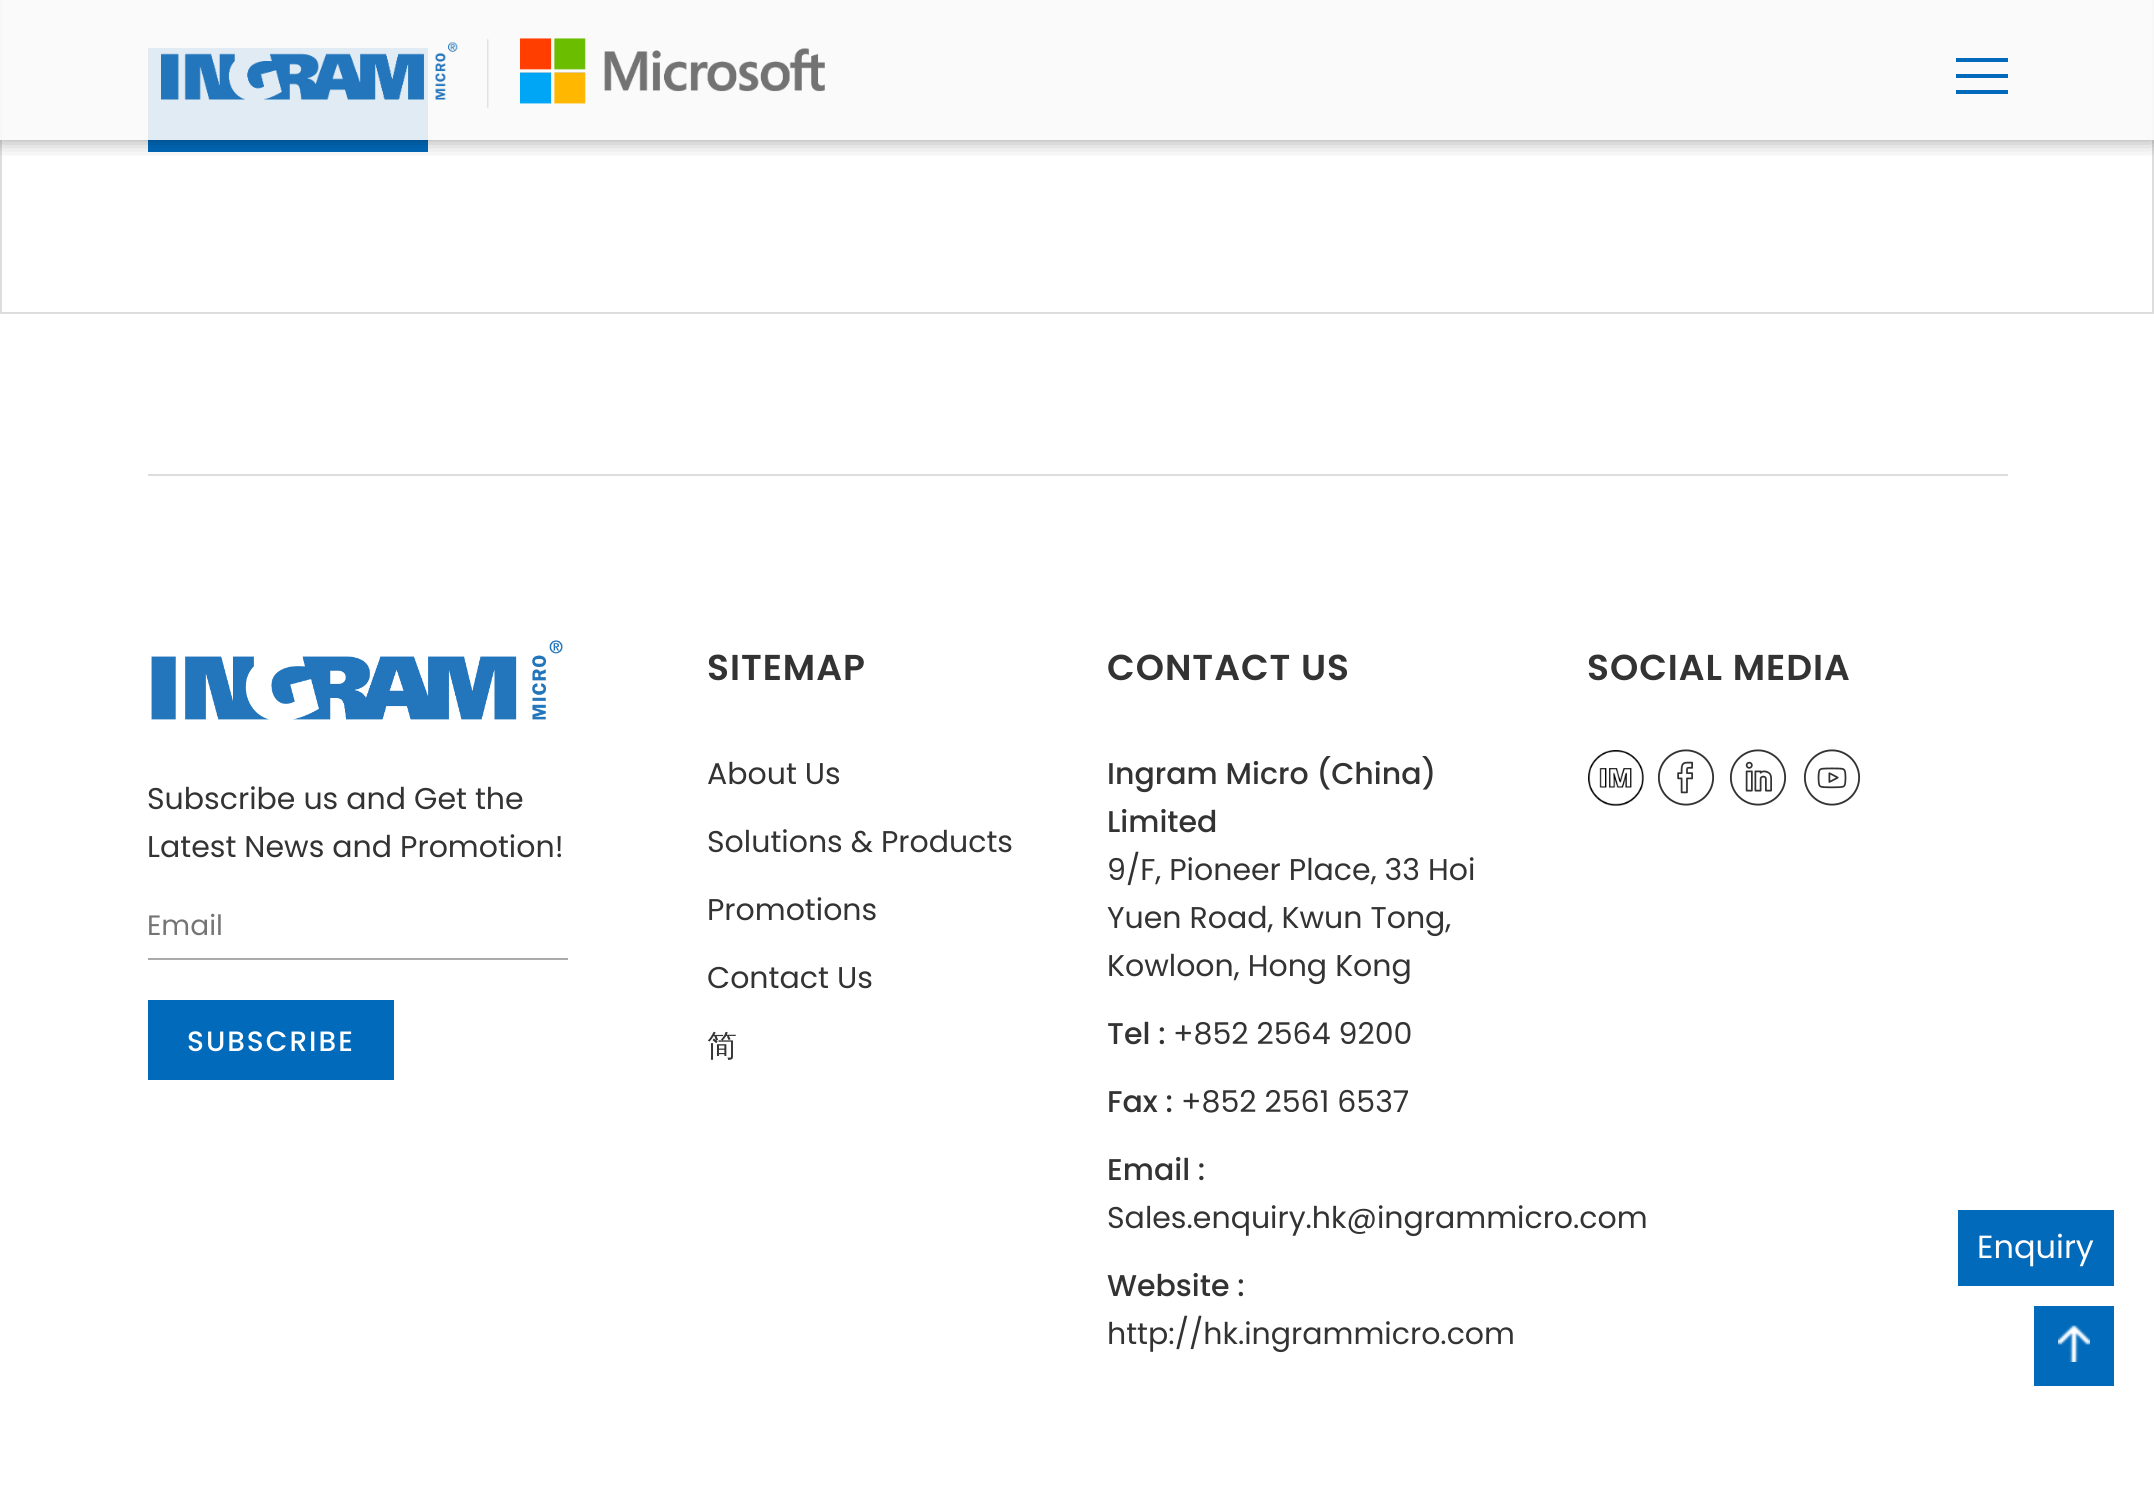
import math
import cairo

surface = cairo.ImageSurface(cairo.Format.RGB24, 2154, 1505)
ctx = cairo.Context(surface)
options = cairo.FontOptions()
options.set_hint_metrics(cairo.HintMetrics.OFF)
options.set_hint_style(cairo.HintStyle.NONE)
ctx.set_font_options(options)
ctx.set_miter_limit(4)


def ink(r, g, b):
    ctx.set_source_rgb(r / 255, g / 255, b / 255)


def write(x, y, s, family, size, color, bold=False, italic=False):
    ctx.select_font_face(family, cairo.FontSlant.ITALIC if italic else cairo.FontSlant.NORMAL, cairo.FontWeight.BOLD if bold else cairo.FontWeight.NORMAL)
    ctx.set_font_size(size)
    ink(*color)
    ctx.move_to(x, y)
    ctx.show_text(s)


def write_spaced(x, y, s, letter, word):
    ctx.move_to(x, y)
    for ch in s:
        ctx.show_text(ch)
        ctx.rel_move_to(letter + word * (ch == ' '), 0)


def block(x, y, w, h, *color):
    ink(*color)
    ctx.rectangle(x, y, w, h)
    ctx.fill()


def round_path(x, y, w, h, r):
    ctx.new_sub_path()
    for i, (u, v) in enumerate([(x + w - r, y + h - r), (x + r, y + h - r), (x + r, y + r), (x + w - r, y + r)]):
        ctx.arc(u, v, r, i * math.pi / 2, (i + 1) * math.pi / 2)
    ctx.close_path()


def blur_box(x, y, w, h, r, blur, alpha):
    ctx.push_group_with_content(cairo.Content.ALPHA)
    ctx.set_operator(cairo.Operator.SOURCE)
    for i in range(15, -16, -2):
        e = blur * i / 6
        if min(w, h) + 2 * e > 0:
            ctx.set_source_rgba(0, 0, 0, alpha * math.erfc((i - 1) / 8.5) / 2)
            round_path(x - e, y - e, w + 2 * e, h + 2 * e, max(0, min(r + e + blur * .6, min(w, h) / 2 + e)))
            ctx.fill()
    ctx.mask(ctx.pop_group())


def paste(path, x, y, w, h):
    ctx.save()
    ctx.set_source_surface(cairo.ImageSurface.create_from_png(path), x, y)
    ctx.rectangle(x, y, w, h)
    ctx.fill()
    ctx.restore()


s1 = dict(family="Poppins", size=30, color=(51, 51, 51))
s2 = dict(family="WenQuanYi Zen Hei Medium", size=30, color=(51, 51, 51))
s3 = dict(family="Poppins Medium", size=30, color=(51, 51, 51))
s4 = dict(family="Poppins", size=28, color=(117, 117, 117))
s5 = dict(family="Poppins", size=32, color=(255, 255, 255))

ink(255, 255, 255)
ctx.paint()
ctx.rectangle(1, -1, 2152, 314)
ink(221, 221, 221)
ctx.stroke()
block(148, 48, 280, 104, 1, 106, 187)
ctx.save()
ctx.rectangle(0, 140, 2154, 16)
ctx.clip()
ink(0, 0, 0)
blur_box(0, 0, 2154, 140, 0, 10, 0.4)
ctx.restore()
ctx.set_source_rgba(0.98, 0.98, 0.98, 0.9)
ctx.rectangle(0, 0, 2154, 140)
ctx.fill()
paste("pic1.png", 161, 38, 664, 71)
block(1956, 74, 52, 4, 1, 106, 187)
block(1956, 58, 52, 4, 1, 106, 187)
block(1956, 90, 52, 4, 1, 106, 187)
block(148, 474, 1860, 2, 221, 221, 221)
ctx.select_font_face("Poppins SemiBold")
ctx.set_font_size(36)
ink(51, 51, 51)
write_spaced(707, 680, "SITEMAP", 1, 0)
write(707, 784, "About Us", **s1)
write(707, 852, "Solutions & Products", **s1)
write(707, 920, "Promotions", **s1)
write(707, 988, "Contact Us", **s1)
write(707, 1056, "简", **s2)
ctx.select_font_face("Poppins SemiBold")
ctx.set_font_size(36)
write_spaced(1107, 680, "CONTACT US", 1, 0)
write(1107, 784, "Ingram Micro (China)", **s3)
write(1107, 832, "Limited", **s3)
write(1107, 880, "9/F, Pioneer Place, 33 Hoi", **s1)
write(1107, 928, "Yuen Road, Kwun Tong,", **s1)
write(1107, 976, "Kowloon, Hong Kong", **s1)
write(1107, 1044, "Tel :", **s3)
write(1173, 1044, "+852 2564 9200", **s1)
write(1107, 1112, "Fax :", **s3)
write(1181, 1112, "+852 2561 6537", **s1)
write(1107, 1180, "Email :", **s3)
write(1107, 1228, "Sales.enquiry.hk@ingrammicro.com", **s1)
write(1107, 1296, "Website :", **s3)
write(1107, 1344, "http://hk.ingrammicro.com", **s1)
ctx.select_font_face("Poppins SemiBold")
ctx.set_font_size(36)
write_spaced(1587, 680, "SOCIAL MEDIA", 1, 0)
paste("pic2.png", 1588, 750, 56, 56)
paste("pic3.png", 1657, 749, 58, 57)
paste("pic4.png", 1729, 749, 58, 57)
paste("pic5.png", 1803, 749, 58, 57)
paste("pic6.png", 151, 640, 412, 80)
write(147, 809, "Subscribe us and Get the", **s1)
write(147, 857, "Latest News and Promotion!", **s1)
block(148, 958, 420, 2, 170, 170, 170)
write(147, 935, "Email", **s4)
block(148, 1000, 246, 80, 1, 106, 187)
ctx.select_font_face("Poppins Medium")
ink(255, 255, 255)
write_spaced(187, 1051, "SUBSCRIBE", 2, 0)
block(1958, 1210, 156, 76, 1, 106, 187)
write(1977, 1258, "Enquiry", **s5)
block(2034, 1306, 80, 80, 1, 106, 187)
paste("pic7.png", 2058, 1325, 32, 37)
surface.write_to_png("screenshot.png")
